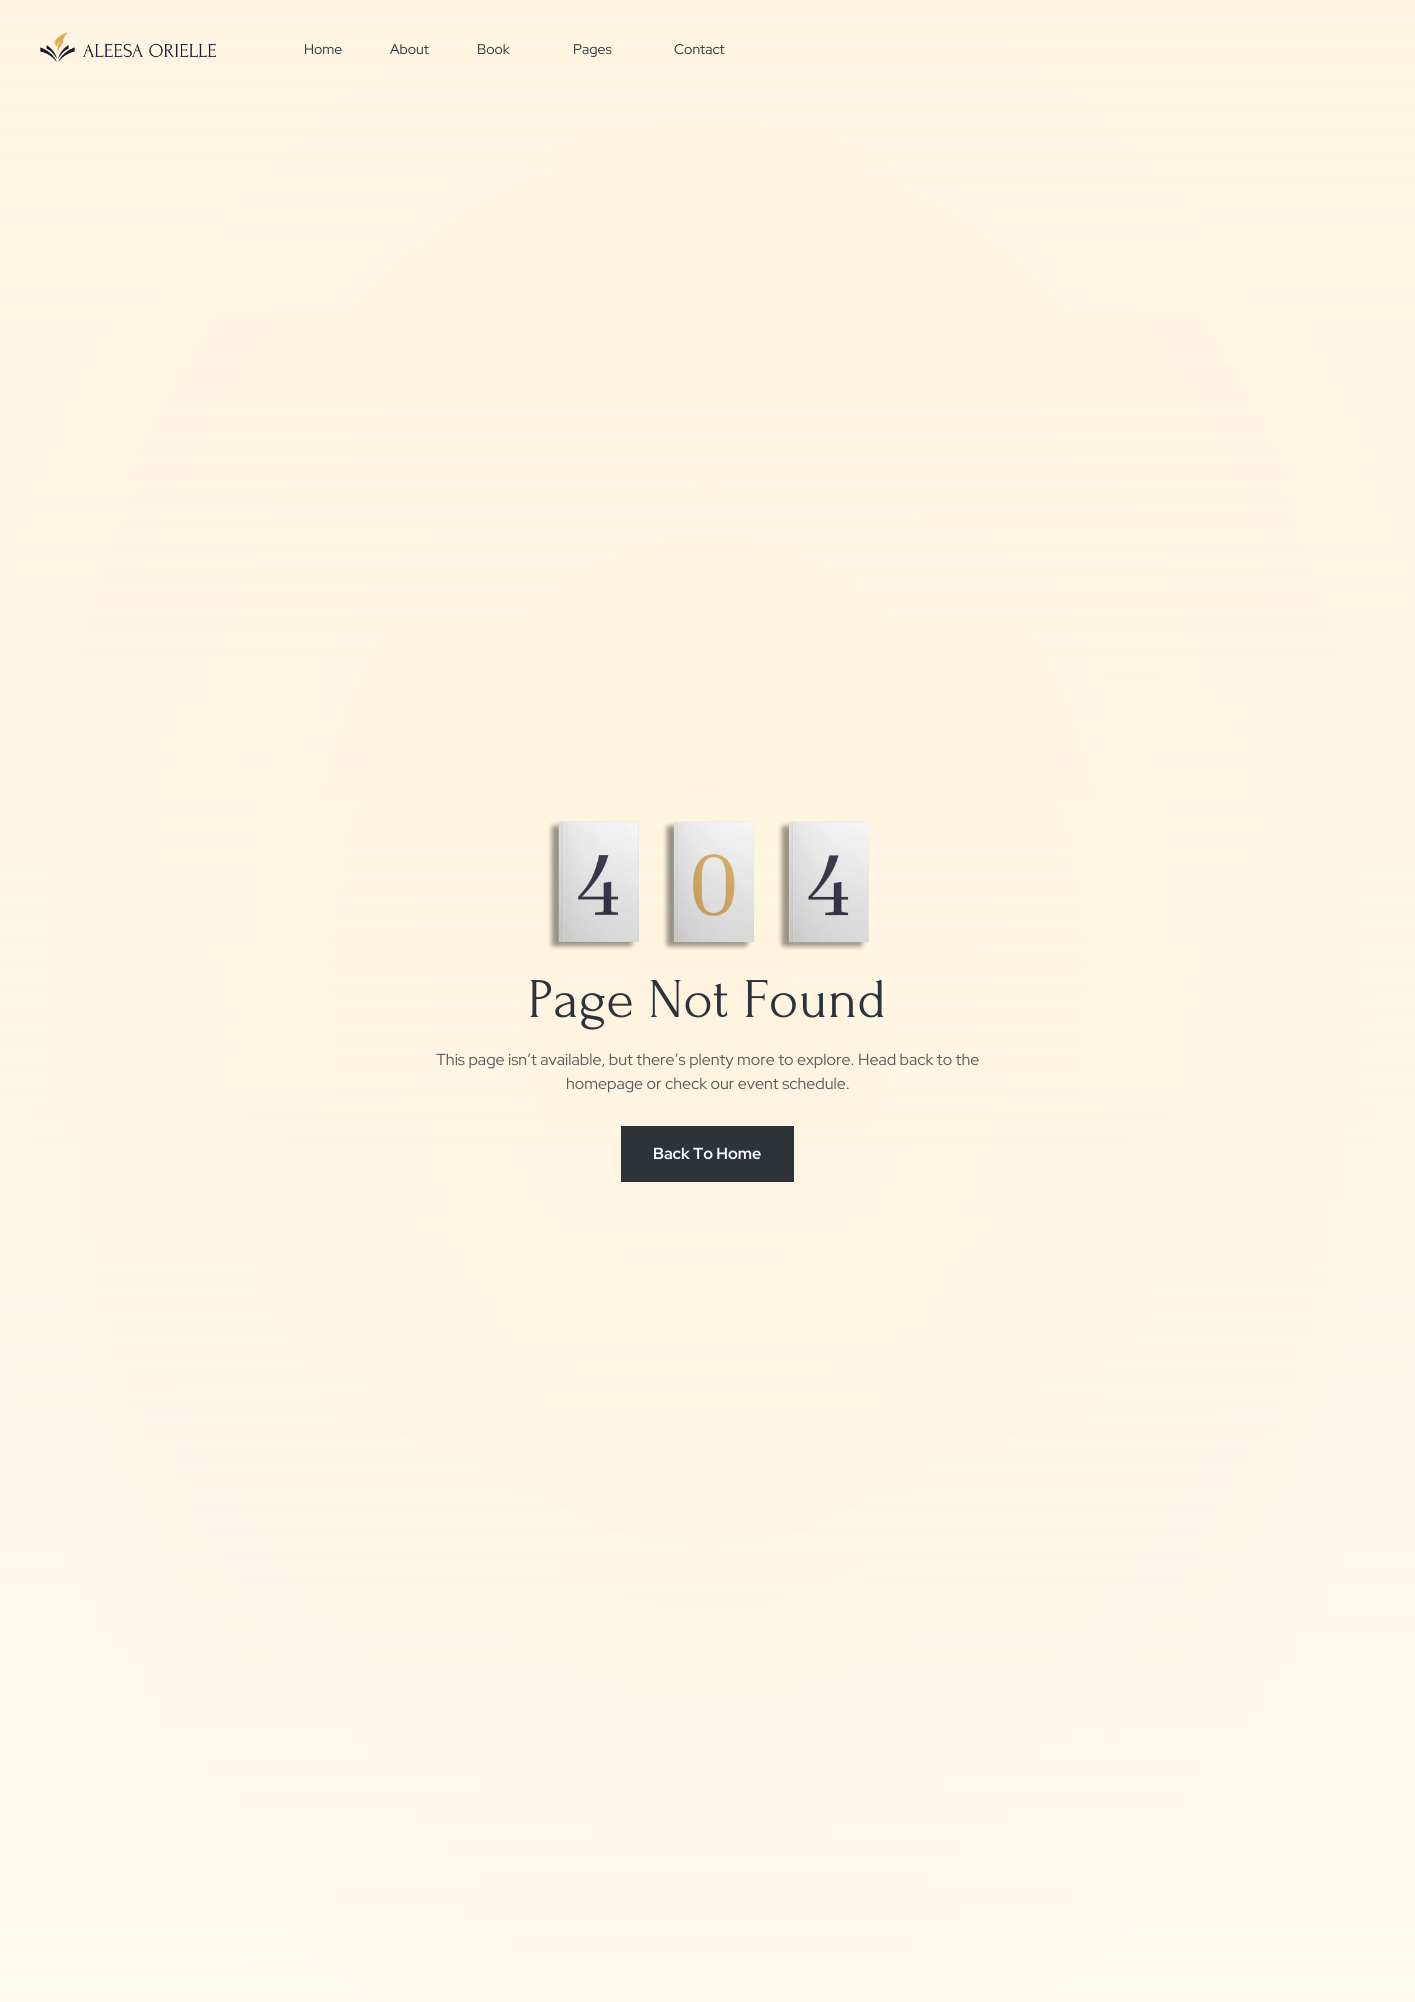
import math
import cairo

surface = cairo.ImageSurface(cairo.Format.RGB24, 1415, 2002)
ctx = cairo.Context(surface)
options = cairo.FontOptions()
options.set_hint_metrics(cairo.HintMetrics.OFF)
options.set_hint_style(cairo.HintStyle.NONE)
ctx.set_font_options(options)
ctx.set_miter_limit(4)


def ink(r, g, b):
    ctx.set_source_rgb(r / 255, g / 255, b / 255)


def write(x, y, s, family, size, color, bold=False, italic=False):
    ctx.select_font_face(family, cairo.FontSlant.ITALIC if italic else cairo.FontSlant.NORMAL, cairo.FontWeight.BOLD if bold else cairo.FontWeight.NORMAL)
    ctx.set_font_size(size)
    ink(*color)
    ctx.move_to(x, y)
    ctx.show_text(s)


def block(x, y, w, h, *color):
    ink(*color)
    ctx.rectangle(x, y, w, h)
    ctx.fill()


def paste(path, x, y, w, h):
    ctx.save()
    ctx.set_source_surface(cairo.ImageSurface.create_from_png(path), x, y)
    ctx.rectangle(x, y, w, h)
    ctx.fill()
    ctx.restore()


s1 = dict(family="Red Hat Display", size=14, color=(44, 51, 57))
s2 = dict(family="Forum", size=56, color=(44, 51, 57))
s3 = dict(family="Red Hat Display", size=16, color=(86, 90, 91))
s4 = dict(family="Red Hat Display", size=16, color=(255, 255, 255), bold=True)

ink(255, 255, 255)
ctx.paint()
gradient = cairo.LinearGradient(707, 0, 708, 2002)
gradient.add_color_stop_rgba(0, 1, 0.949, 0.859, 1)
gradient.add_color_stop_rgba(0.98, 1, 0.973, 0.918, 1)
ctx.set_source(gradient)
ctx.rectangle(0, 0, 1415, 2002)
ctx.fill()
gradient = cairo.RadialGradient(0, 0, 0, 0, 0, 1)
gradient.set_matrix(cairo.Matrix(1 / 1001, 0, 0, 1 / 1416, -1 * 708 / 1001, -1 * 1001 / 1416))
gradient.add_color_stop_rgba(0, 1, 1, 1, 0.16)
gradient.add_color_stop_rgba(0.8, 1, 1, 1, 1)
ctx.set_source(gradient)
ctx.rectangle(0, 0, 1415, 2002)
ctx.fill()
gradient = cairo.LinearGradient(707, 0, 708, 2002)
gradient.add_color_stop_rgba(0, 1, 0.949, 0.859, 0.8)
gradient.add_color_stop_rgba(1, 1, 0.949, 0.859, 0.48)
ctx.set_source(gradient)
ctx.rectangle(0, 0, 1415, 2002)
ctx.fill()
paste("pic1.png", 40, 32, 176, 30)
write(304, 54, "Home", **s1)
write(390, 54, "About", **s1)
write(477, 54, "Book", **s1)
write(573, 54, "Pages", **s1)
write(674, 54, "Contact", **s1)
paste("pic2.png", 548, 821, 321, 129)
write(528, 1017, "Page Not Found", **s2)
write(436, 1065, "This page isn’t available, but there’s plenty more to explore. Head back to the", **s3)
write(566, 1089, "homepage or check our event schedule.", **s3)
block(621, 1126, 173, 56, 44, 51, 57)
write(653, 1159, "Back To Home", **s4)
surface.write_to_png("screenshot.png")
